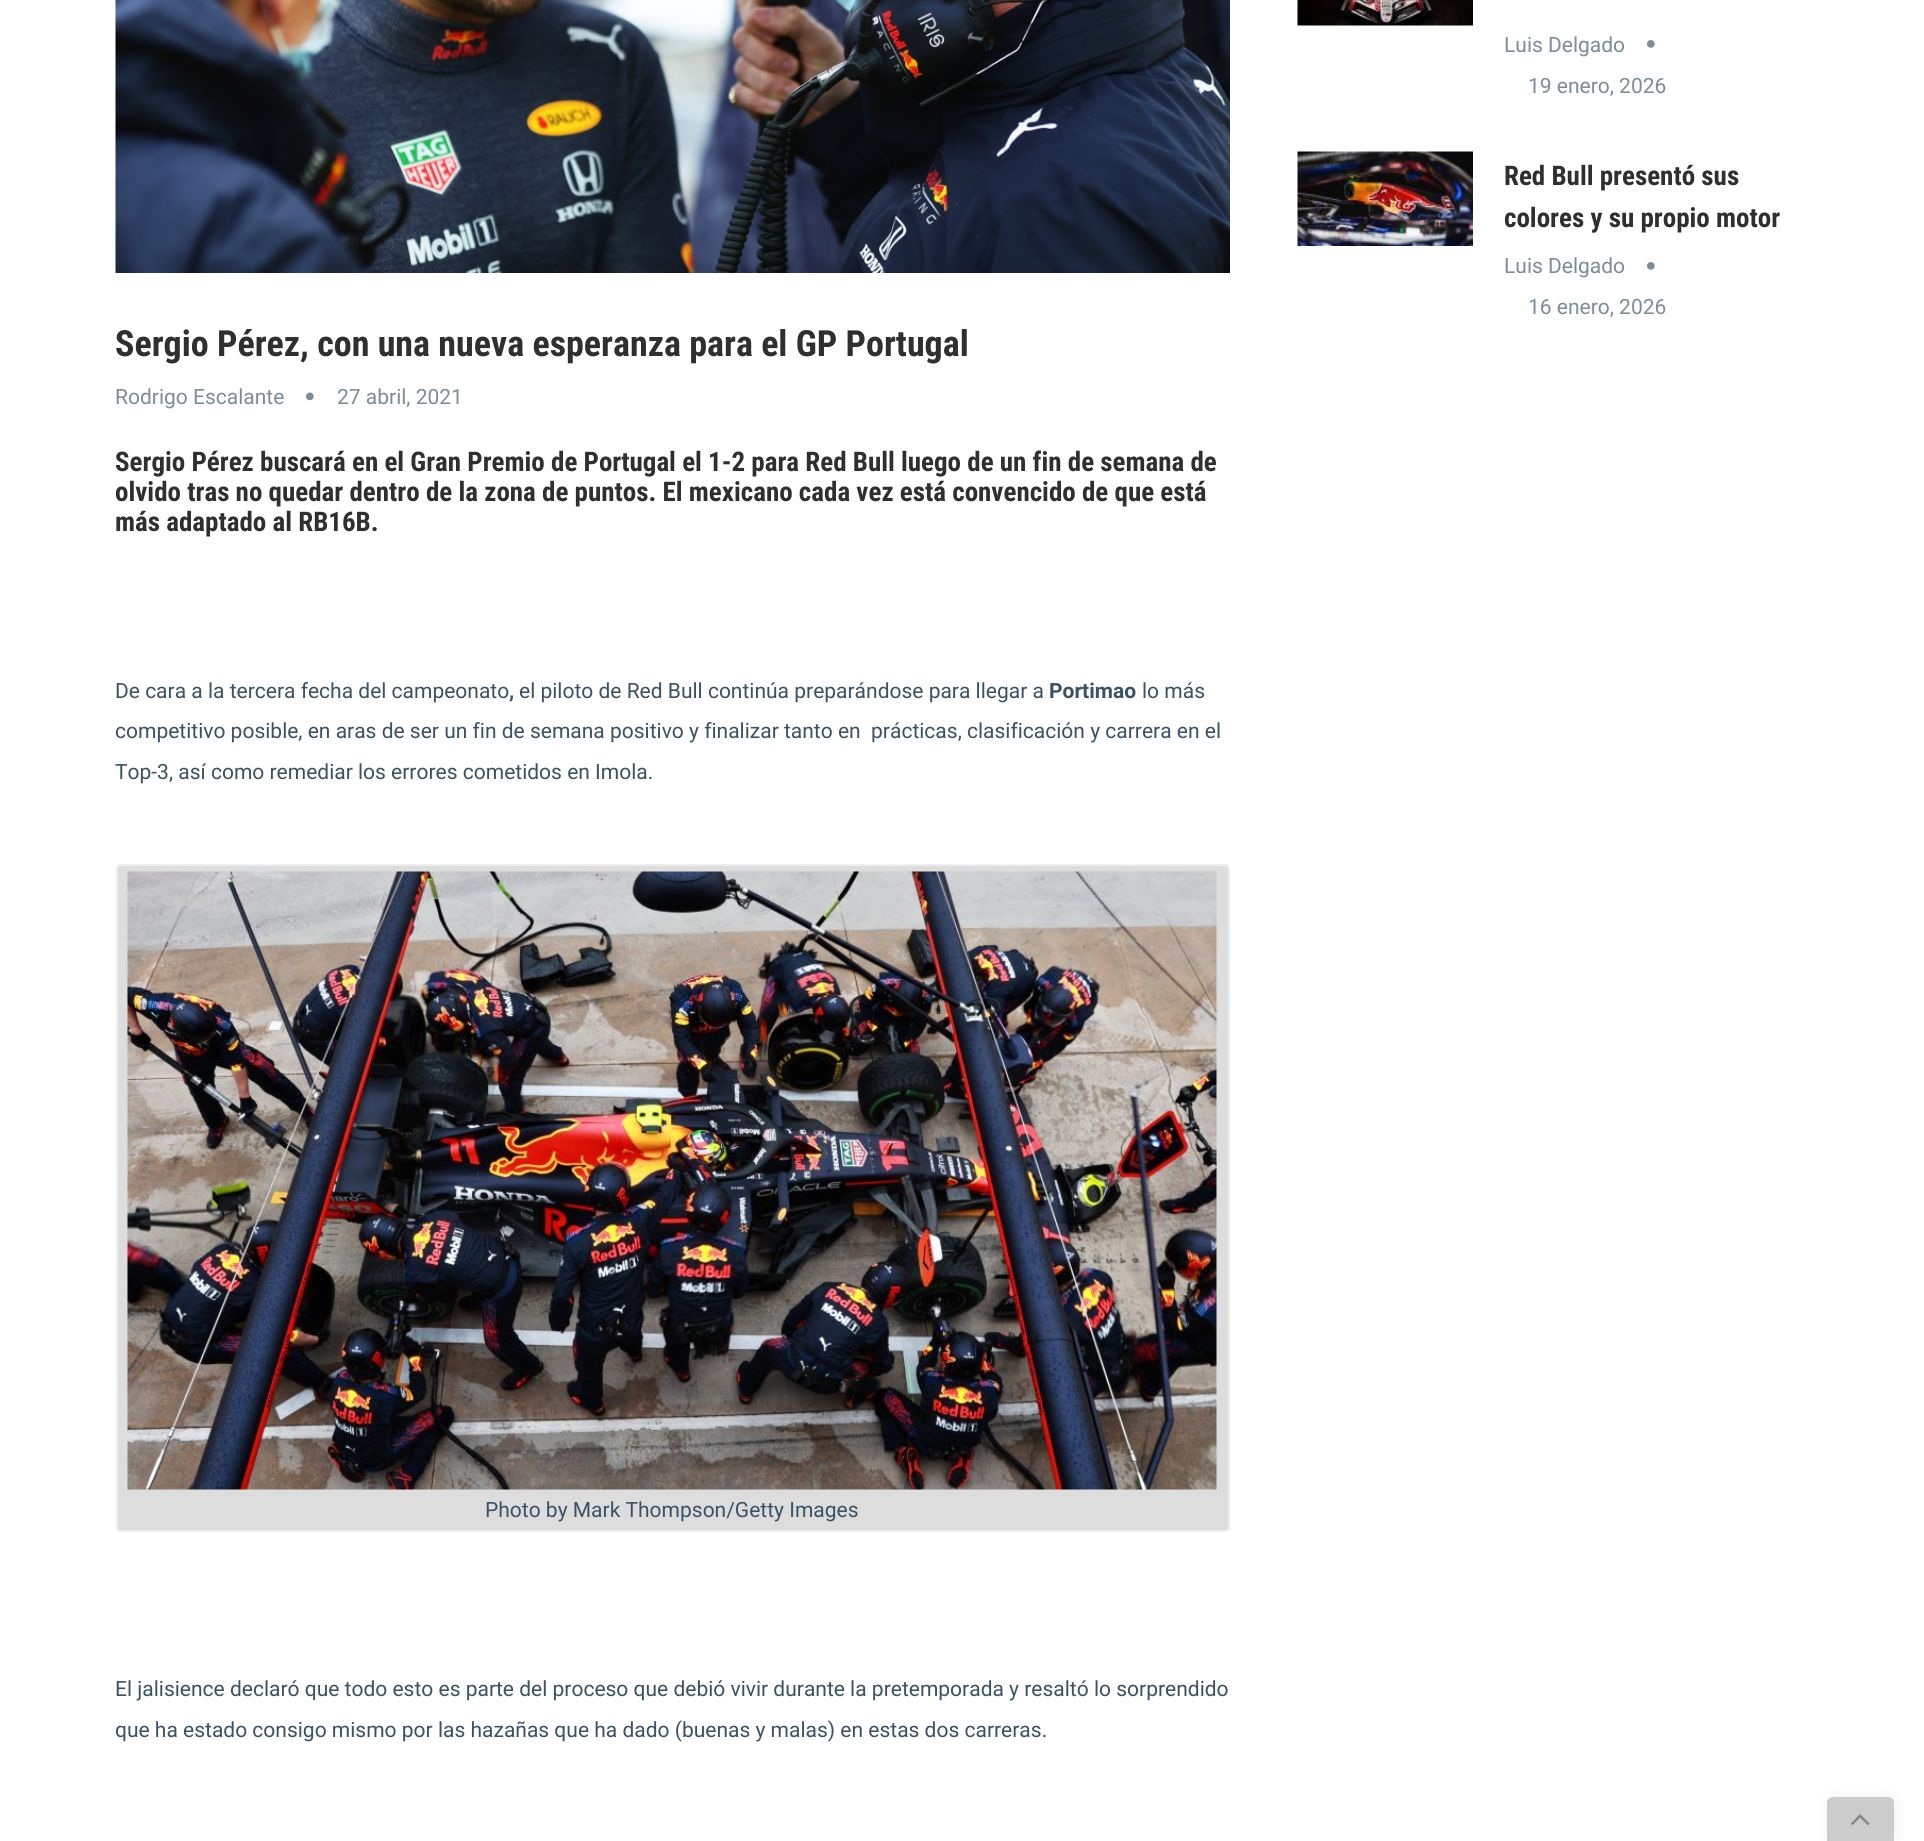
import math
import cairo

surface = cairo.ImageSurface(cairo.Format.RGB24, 1924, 1841)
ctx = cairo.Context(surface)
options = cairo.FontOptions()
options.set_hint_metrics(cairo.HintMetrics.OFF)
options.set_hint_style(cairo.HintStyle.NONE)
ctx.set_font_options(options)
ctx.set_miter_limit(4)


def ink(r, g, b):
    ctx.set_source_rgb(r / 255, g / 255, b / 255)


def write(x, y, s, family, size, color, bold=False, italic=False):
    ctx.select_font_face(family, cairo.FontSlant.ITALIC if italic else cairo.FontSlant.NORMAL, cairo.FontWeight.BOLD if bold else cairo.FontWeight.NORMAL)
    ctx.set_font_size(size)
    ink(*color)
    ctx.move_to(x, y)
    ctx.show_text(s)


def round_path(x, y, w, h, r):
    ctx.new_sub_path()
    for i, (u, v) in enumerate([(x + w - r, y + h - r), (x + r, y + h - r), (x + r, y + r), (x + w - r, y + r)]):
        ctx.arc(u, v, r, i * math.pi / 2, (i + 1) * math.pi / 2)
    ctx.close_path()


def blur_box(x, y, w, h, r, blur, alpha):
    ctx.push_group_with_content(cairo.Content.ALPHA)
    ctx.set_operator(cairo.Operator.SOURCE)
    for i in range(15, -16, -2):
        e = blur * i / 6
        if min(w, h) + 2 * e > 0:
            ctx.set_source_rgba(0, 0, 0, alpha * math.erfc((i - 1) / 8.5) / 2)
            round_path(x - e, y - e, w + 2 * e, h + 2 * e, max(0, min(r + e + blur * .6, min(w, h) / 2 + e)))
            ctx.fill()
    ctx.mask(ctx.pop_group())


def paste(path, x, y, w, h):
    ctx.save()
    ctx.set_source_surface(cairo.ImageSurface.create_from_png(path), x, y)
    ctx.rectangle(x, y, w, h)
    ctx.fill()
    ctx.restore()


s1 = dict(family="Roboto", size=21, color=(124, 140, 153))
s2 = dict(family="Roboto Condensed", size=27, color=(47, 47, 47), bold=True)
s3 = dict(family="Roboto Condensed", size=36, color=(47, 47, 47), bold=True)
s4 = dict(family="Roboto", size=21, color=(59, 82, 101))
s5 = dict(family="Roboto", size=21, color=(59, 82, 101), bold=True)

ink(255, 255, 255)
ctx.paint()
paste("pic1.png", 1297, 0, 176, 26)
write(1504, 52, "Luis Delgado", **s1)
paste("pic2.png", 1647, 40, 8, 8)
write(1528, 93, "19 enero, 2026", **s1)
paste("pic3.png", 1297, 151, 176, 95)
write(1504, 185, "Red Bull presentó sus", **s2)
write(1504, 227, "colores y su propio motor", **s2)
write(1504, 273, "Luis Delgado", **s1)
paste("pic2.png", 1647, 262, 8, 8)
write(1528, 314, "16 enero, 2026", **s1)
paste("pic4.png", 115, 0, 1115, 273)
write(115, 356, "Sergio Pérez, con una nueva esperanza para el GP Portugal", **s3)
write(115, 404, "Rodrigo Escalante", **s1)
paste("pic5.png", 306, 392, 8, 9)
write(337, 404, "27 abril, 2021", **s1)
write(115, 471, "Sergio Pérez buscará en el Gran Premio de Portugal el 1-2 para Red Bull luego de un fin de semana de", **s2)
write(115, 501, "olvido tras no quedar dentro de la zona de puntos. El mexicano cada vez está convencido de que está", **s2)
write(115, 531, "más adaptado al RB16B.", **s2)
write(115, 698, "De cara a la tercera fecha del campeonato", **s4)
write(509, 698, ",", **s5)
write(519, 698, "el piloto de Red Bull continúa preparándose para llegar a", **s4)
write(1049, 698, "Portimao", **s5)
write(1142, 698, "lo más", **s4)
write(115, 738, "competitivo posible, en aras de ser un fin de semana positivo y finalizar tanto en  prácticas, clasificación y carrera en el", **s4)
write(115, 779, "Top-3, así como remediar los errores cometidos en Imola.", **s4)
ink(221, 221, 221)
round_path(117, 865, 1112, 666, 4)
ctx.fill_preserve()
ink(238, 238, 238)
ctx.stroke()
paste("pic6.png", 127, 871, 1090, 619)
write(485, 1517, "Photo by Mark Thompson/Getty Images", **s4)
write(115, 1696, "El jalisience declaró que todo esto es parte del proceso que debió vivir durante la pretemporada y resaltó lo sorprendido", **s4)
write(115, 1737, "que ha estado consigo mismo por las hazañas que ha dado (buenas y malas) en estas dos carreras.", **s4)
ink(0, 0, 0)
blur_box(1827, 1797, 68, 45, 5, 7.5, 0.05)
ink(204, 204, 204)
ctx.new_path()
ctx.move_to(1834, 1797)
ctx.line_to(1888, 1797)
ctx.curve_to(1891, 1797, 1894, 1799, 1894, 1802)
ctx.line_to(1894, 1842)
ctx.line_to(1827, 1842)
ctx.line_to(1827, 1802)
ctx.curve_to(1827, 1799, 1830, 1797, 1834, 1797)
ctx.close_path()
ctx.fill()
paste("pic7.png", 1851, 1814, 19, 11)
surface.write_to_png("screenshot.png")
